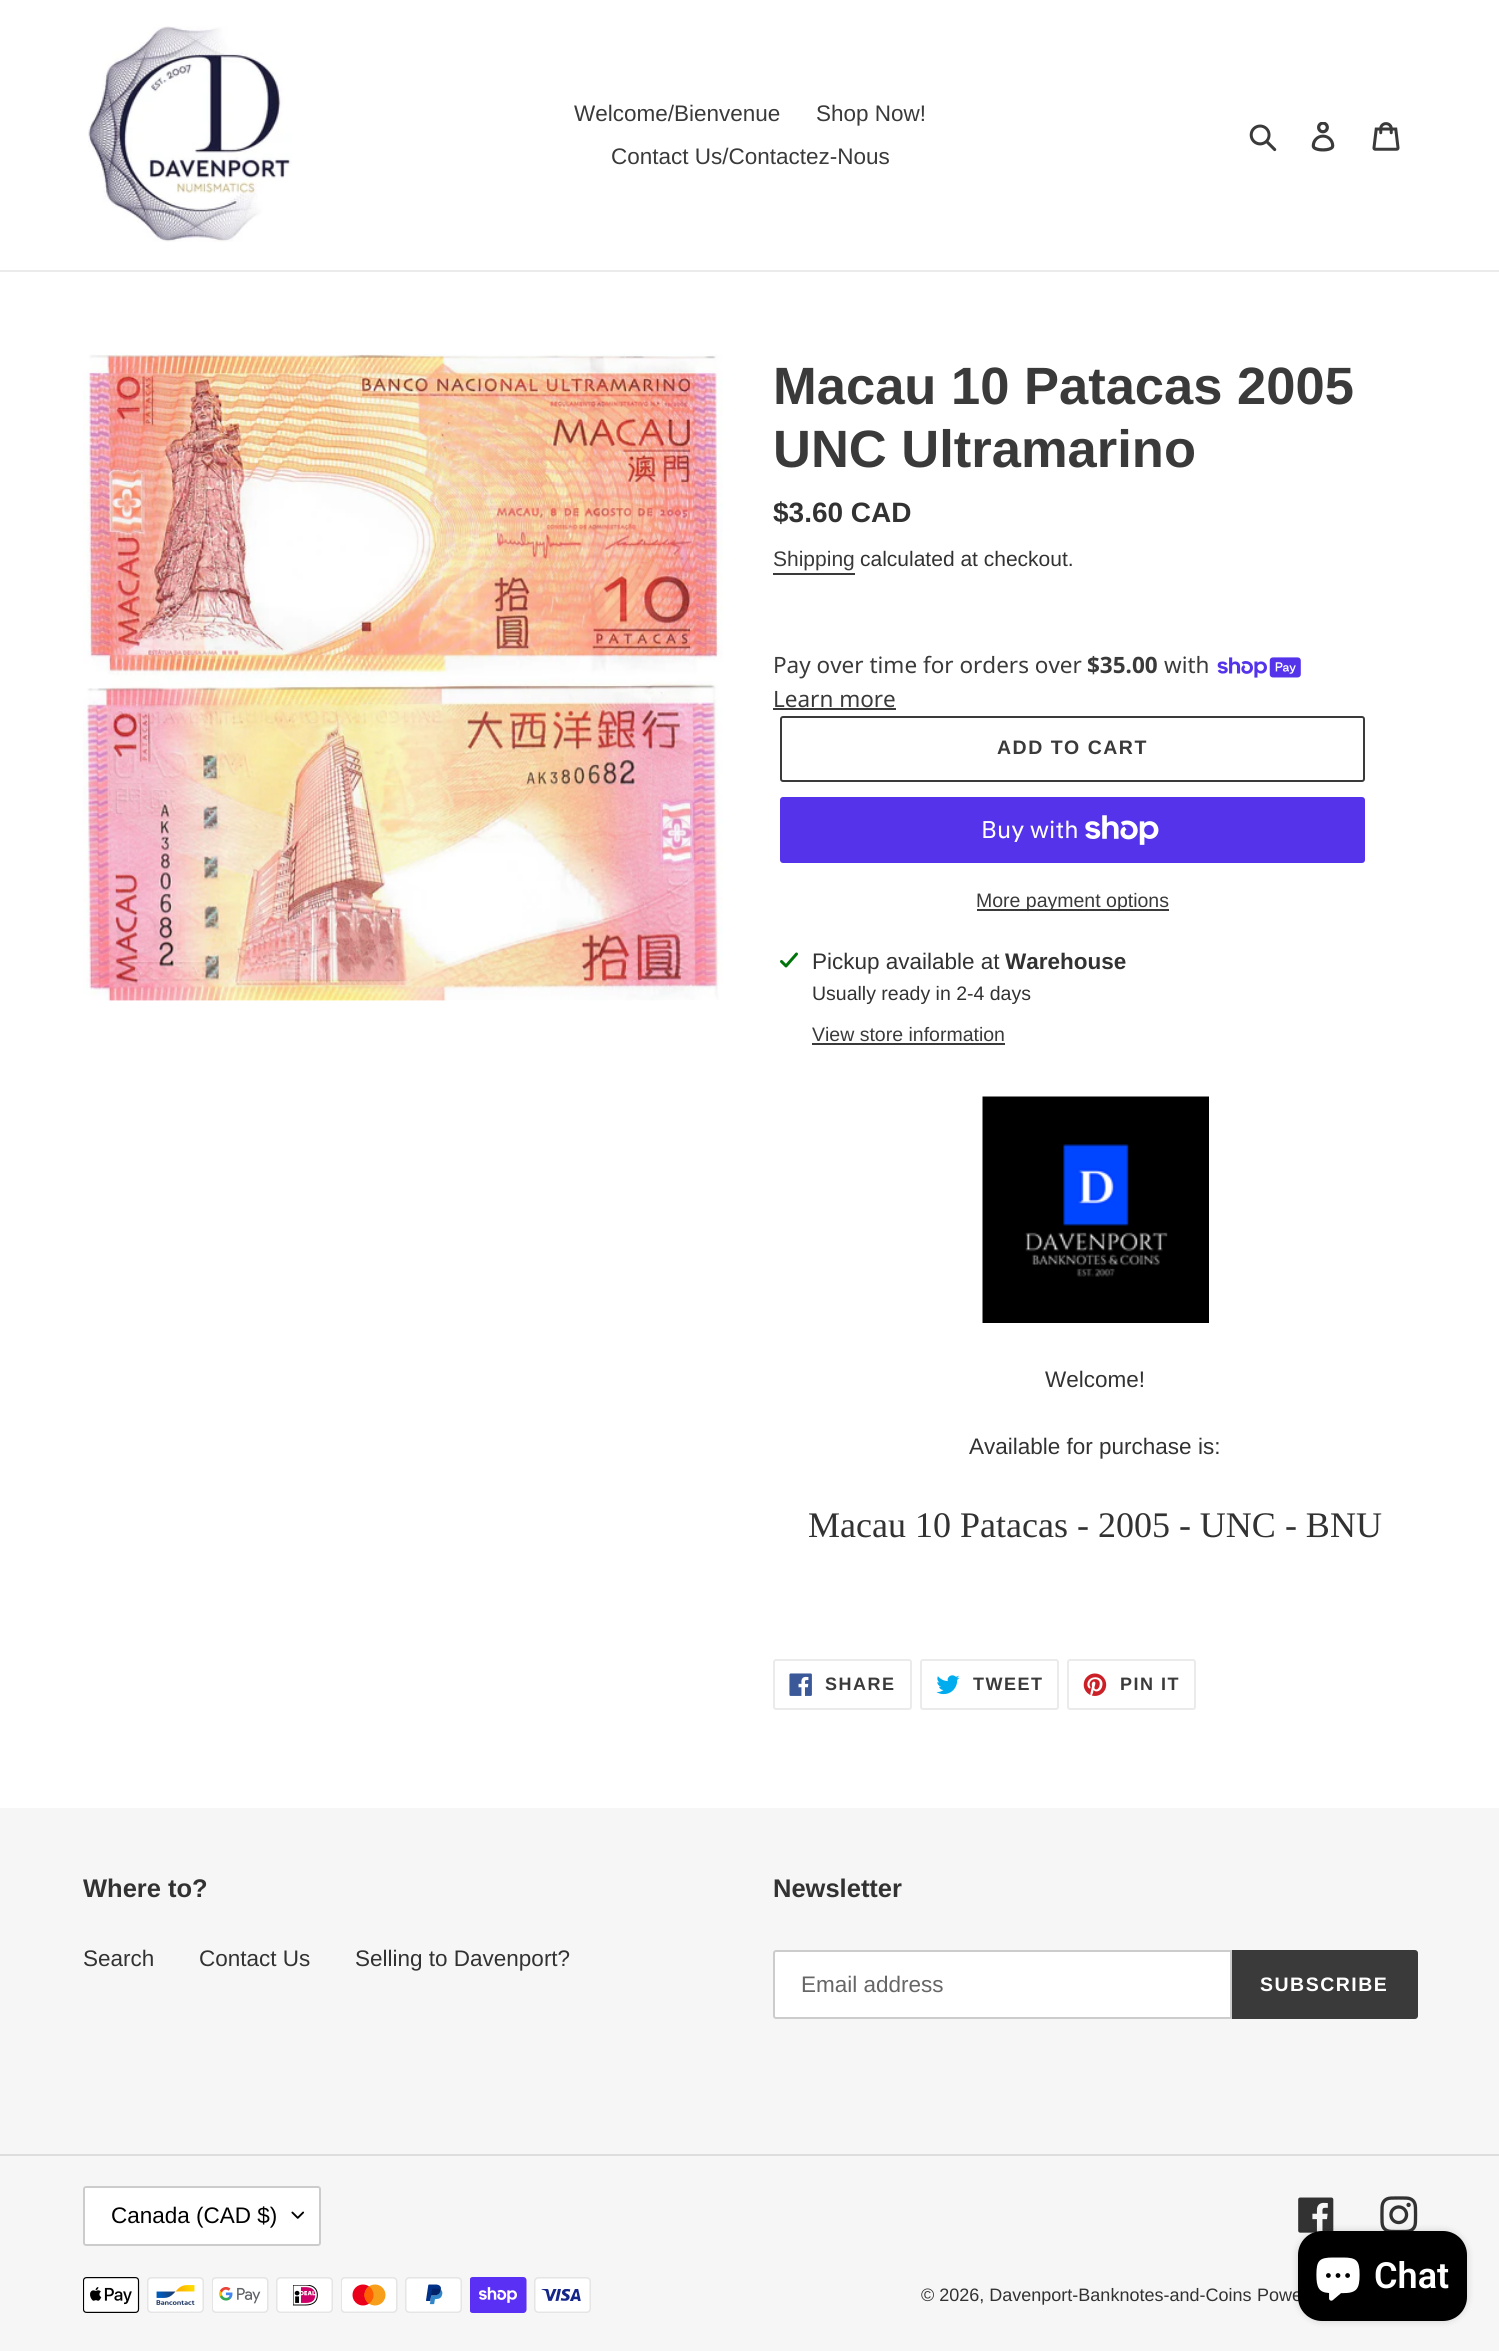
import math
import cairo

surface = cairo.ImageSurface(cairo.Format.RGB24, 1499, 2351)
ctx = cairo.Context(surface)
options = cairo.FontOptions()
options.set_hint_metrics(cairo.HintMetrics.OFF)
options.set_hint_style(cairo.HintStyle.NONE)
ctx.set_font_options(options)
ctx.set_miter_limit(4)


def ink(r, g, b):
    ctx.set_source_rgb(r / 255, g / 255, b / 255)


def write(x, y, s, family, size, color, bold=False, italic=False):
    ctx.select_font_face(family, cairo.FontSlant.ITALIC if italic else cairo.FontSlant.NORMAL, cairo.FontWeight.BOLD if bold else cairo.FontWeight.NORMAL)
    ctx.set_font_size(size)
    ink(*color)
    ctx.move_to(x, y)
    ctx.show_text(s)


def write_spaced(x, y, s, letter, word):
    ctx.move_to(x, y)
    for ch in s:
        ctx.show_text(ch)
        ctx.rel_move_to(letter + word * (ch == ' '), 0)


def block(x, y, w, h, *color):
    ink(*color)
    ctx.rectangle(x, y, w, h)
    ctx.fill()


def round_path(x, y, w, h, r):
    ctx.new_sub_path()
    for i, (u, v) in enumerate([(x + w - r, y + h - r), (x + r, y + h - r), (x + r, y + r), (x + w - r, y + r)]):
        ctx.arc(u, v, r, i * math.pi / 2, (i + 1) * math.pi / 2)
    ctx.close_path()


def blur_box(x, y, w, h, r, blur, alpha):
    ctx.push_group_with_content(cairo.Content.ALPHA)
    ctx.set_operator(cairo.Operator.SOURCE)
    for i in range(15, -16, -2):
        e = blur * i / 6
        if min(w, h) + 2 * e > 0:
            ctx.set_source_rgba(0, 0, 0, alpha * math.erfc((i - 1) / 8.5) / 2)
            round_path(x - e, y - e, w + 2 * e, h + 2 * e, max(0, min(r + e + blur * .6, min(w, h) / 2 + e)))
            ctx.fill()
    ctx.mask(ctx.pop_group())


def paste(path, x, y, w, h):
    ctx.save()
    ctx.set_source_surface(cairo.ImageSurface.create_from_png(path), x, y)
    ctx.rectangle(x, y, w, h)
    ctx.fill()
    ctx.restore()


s1 = dict(family="Liberation Sans", size=22.5, color=(58, 58, 58))
s2 = dict(family="Liberation Sans", size=52.5, color=(58, 58, 58), bold=True)
s3 = dict(family="Liberation Sans", size=28, color=(51, 50, 50), bold=True)
s4 = dict(family="Liberation Sans", size=21, color=(58, 58, 58))
s5 = dict(family="Liberation Sans", size=21, color=(51, 50, 50))
s6 = dict(family="Noto Sans", size=22.5, color=(58, 58, 58))
s7 = dict(family="Noto Sans", size=22.5, color=(58, 58, 58), bold=True)
s8 = dict(family="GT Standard", size=24, color=(255, 255, 255))
s9 = dict(family="Liberation Sans", size=19.5, color=(58, 58, 58))
s10 = dict(family="Liberation Sans", size=22.5, color=(51, 50, 50))
s11 = dict(family="Liberation Sans", size=22.5, color=(51, 50, 50), bold=True)
s12 = dict(family="Liberation Sans", size=19.5, color=(51, 50, 50))
s13 = dict(family="Liberation Serif", size=36, color=(51, 50, 50))
s14 = dict(family="Liberation Sans", size=25.5, color=(51, 50, 50), bold=True)
s15 = dict(family="Liberation Sans", size=22.5, color=(102, 102, 102))
s16 = dict(family="Liberation Sans", size=22.5, color=(0, 0, 0))
s17 = dict(family="Liberation Sans", size=18, color=(51, 50, 50))
s18 = dict(family="Roboto SemiBold", size=36, color=(255, 255, 255))

ink(255, 255, 255)
ctx.paint()
block(0, 270, 1499, 2, 235, 235, 235)
paste("pic1.png", 88, 26, 204, 216)
write(574, 121, "Welcome/Bienvenue", **s1)
write(816, 121, "Shop Now!", **s1)
write(611, 164, "Contact Us/Contactez-Nous", **s1)
paste("pic2.png", 1249, 124, 28, 28)
paste("pic3.png", 1311, 122, 24, 30)
paste("pic4.png", 1372, 122, 28, 29)
paste("pic5.png", 83, 354, 640, 647)
write(773, 404, "Macau 10 Patacas 2005", **s2)
write(773, 467, "UNC Ultramarino", **s2)
write(773, 522, "$3.60 CAD", **s3)
write(773, 566, "Shipping", **s4)
block(773, 573, 82, 2, 58, 58, 58)
write(860, 566, "calculated at checkout.", **s5)
write(773, 673, "Pay over time for orders over", **s6)
write(1087, 673, "$35.00", **s7)
write(1164, 673, "with", **s6)
paste("pic6.png", 1217, 657, 84, 21)
write(773, 707, "Learn more", **s6)
block(773, 708, 123, 2, 58, 58, 58)
round_path(781, 717, 583, 64, 2)
ctx.stroke()
ctx.select_font_face("Liberation Sans", cairo.FontSlant.NORMAL, cairo.FontWeight.BOLD)
ctx.set_font_size(19.5)
write_spaced(997, 754, "ADD TO CART", 1.5, 0)
ink(84, 51, 235)
round_path(780, 797, 585, 66, 3)
ctx.fill()
write(981, 838, "Buy with", **s8)
paste("pic7.png", 1085, 815, 74, 30)
block(977, 909, 192, 2, 58, 58, 58)
write(976, 907, "More payment options", **s9)
paste("pic8.png", 780, 952, 18, 16)
write(812, 969, "Pickup available at", **s10)
write(1005, 969, "Warehouse", **s11)
write(812, 1000, "Usually ready in 2-4 days", **s12)
write(812, 1041, "View store information", **s9)
block(812, 1043, 193, 2, 58, 58, 58)
paste("pic9.png", 982, 1096, 227, 227)
write(1045, 1387, "Welcome!", **s10)
write(969, 1454, "Available for purchase is:", **s10)
write(808, 1537, "Macau 10 Patacas - 2005 - UNC - BNU", **s13)
round_path(774, 1660, 137, 49, 2)
ink(235, 235, 235)
ctx.stroke()
paste("pic10.png", 789, 1673, 23, 23)
ctx.select_font_face("Liberation Sans", cairo.FontSlant.NORMAL, cairo.FontWeight.BOLD)
ctx.set_font_size(18)
ink(58, 58, 58)
write_spaced(825, 1690, "SHARE", 1.5, 0)
round_path(921, 1660, 137, 49, 2)
ink(235, 235, 235)
ctx.stroke()
paste("pic11.png", 936, 1675, 24, 20)
ink(58, 58, 58)
write_spaced(973, 1690, "TWEET", 1.5, 0)
round_path(1068, 1660, 127, 49, 2)
ink(235, 235, 235)
ctx.stroke()
paste("pic12.png", 1083, 1673, 24, 23)
ink(58, 58, 58)
write_spaced(1120, 1690, "PIN IT", 1.5, 0)
block(0, 1808, 1499, 543, 246, 246, 246)
write(83, 1897, "Where to?", **s14)
write(83, 1966, "Search", **s10)
write(199, 1966, "Contact Us", **s10)
write(355, 1966, "Selling to Davenport?", **s10)
write(773, 1897, "Newsletter", **s14)
ink(255, 255, 255)
ctx.new_path()
ctx.move_to(776, 1951)
ctx.line_to(1231, 1951)
ctx.line_to(1231, 2018)
ctx.line_to(776, 2018)
ctx.curve_to(775, 2018, 774, 2017, 774, 2016)
ctx.line_to(774, 1953)
ctx.curve_to(774, 1952, 775, 1951, 776, 1951)
ctx.close_path()
ctx.fill_preserve()
ink(204, 204, 204)
ctx.stroke()
write(801, 1992, "Email address", **s15)
ink(58, 58, 58)
ctx.new_path()
ctx.move_to(1232, 1950)
ctx.line_to(1415, 1950)
ctx.curve_to(1416.5, 1950, 1418, 1951.5, 1418, 1953)
ctx.line_to(1418, 2016)
ctx.curve_to(1418, 2017.5, 1416.5, 2019, 1415, 2019)
ctx.line_to(1232, 2019)
ctx.close_path()
ctx.fill()
ctx.select_font_face("Liberation Sans", cairo.FontSlant.NORMAL, cairo.FontWeight.BOLD)
ctx.set_font_size(19.5)
ink(255, 255, 255)
write_spaced(1260, 1991, "SUBSCRIBE", 1.5, 0)
block(0, 2154, 1499, 2, 221, 221, 221)
ink(255, 255, 255)
round_path(83, 2186, 238, 60, 3)
ctx.fill()
paste("pic13.png", 291, 2211, 14, 8)
round_path(84, 2187, 236, 58, 2)
ink(204, 204, 204)
ctx.stroke()
write(111, 2223, "Canada (CAD $)", **s16)
paste("pic14.png", 1298, 2197, 36, 36)
paste("pic15.png", 1380, 2196, 38, 35)
paste("pic16.png", 83, 2277, 57, 36)
paste("pic17.png", 147, 2277, 57, 36)
paste("pic18.png", 212, 2277, 57, 36)
paste("pic19.png", 276, 2277, 57, 36)
paste("pic20.png", 341, 2277, 57, 36)
paste("pic21.png", 405, 2277, 57, 36)
paste("pic22.png", 470, 2277, 57, 36)
paste("pic23.png", 534, 2277, 57, 36)
write(921, 2301, "© 2026, Davenport-Banknotes-and-Coins", **s17)
write(1257, 2301, "Powe", **s17)
ink(0, 0, 0)
blur_box(1298, 2231, 169, 90, 24, 4, 0.15)
ink(0, 0, 0)
round_path(1298, 2231, 169, 90, 24)
ctx.fill()
paste("pic24.png", 1316, 2257, 44, 44)
write(1374, 2288, "Chat", **s18)
surface.write_to_png("screenshot.png")
